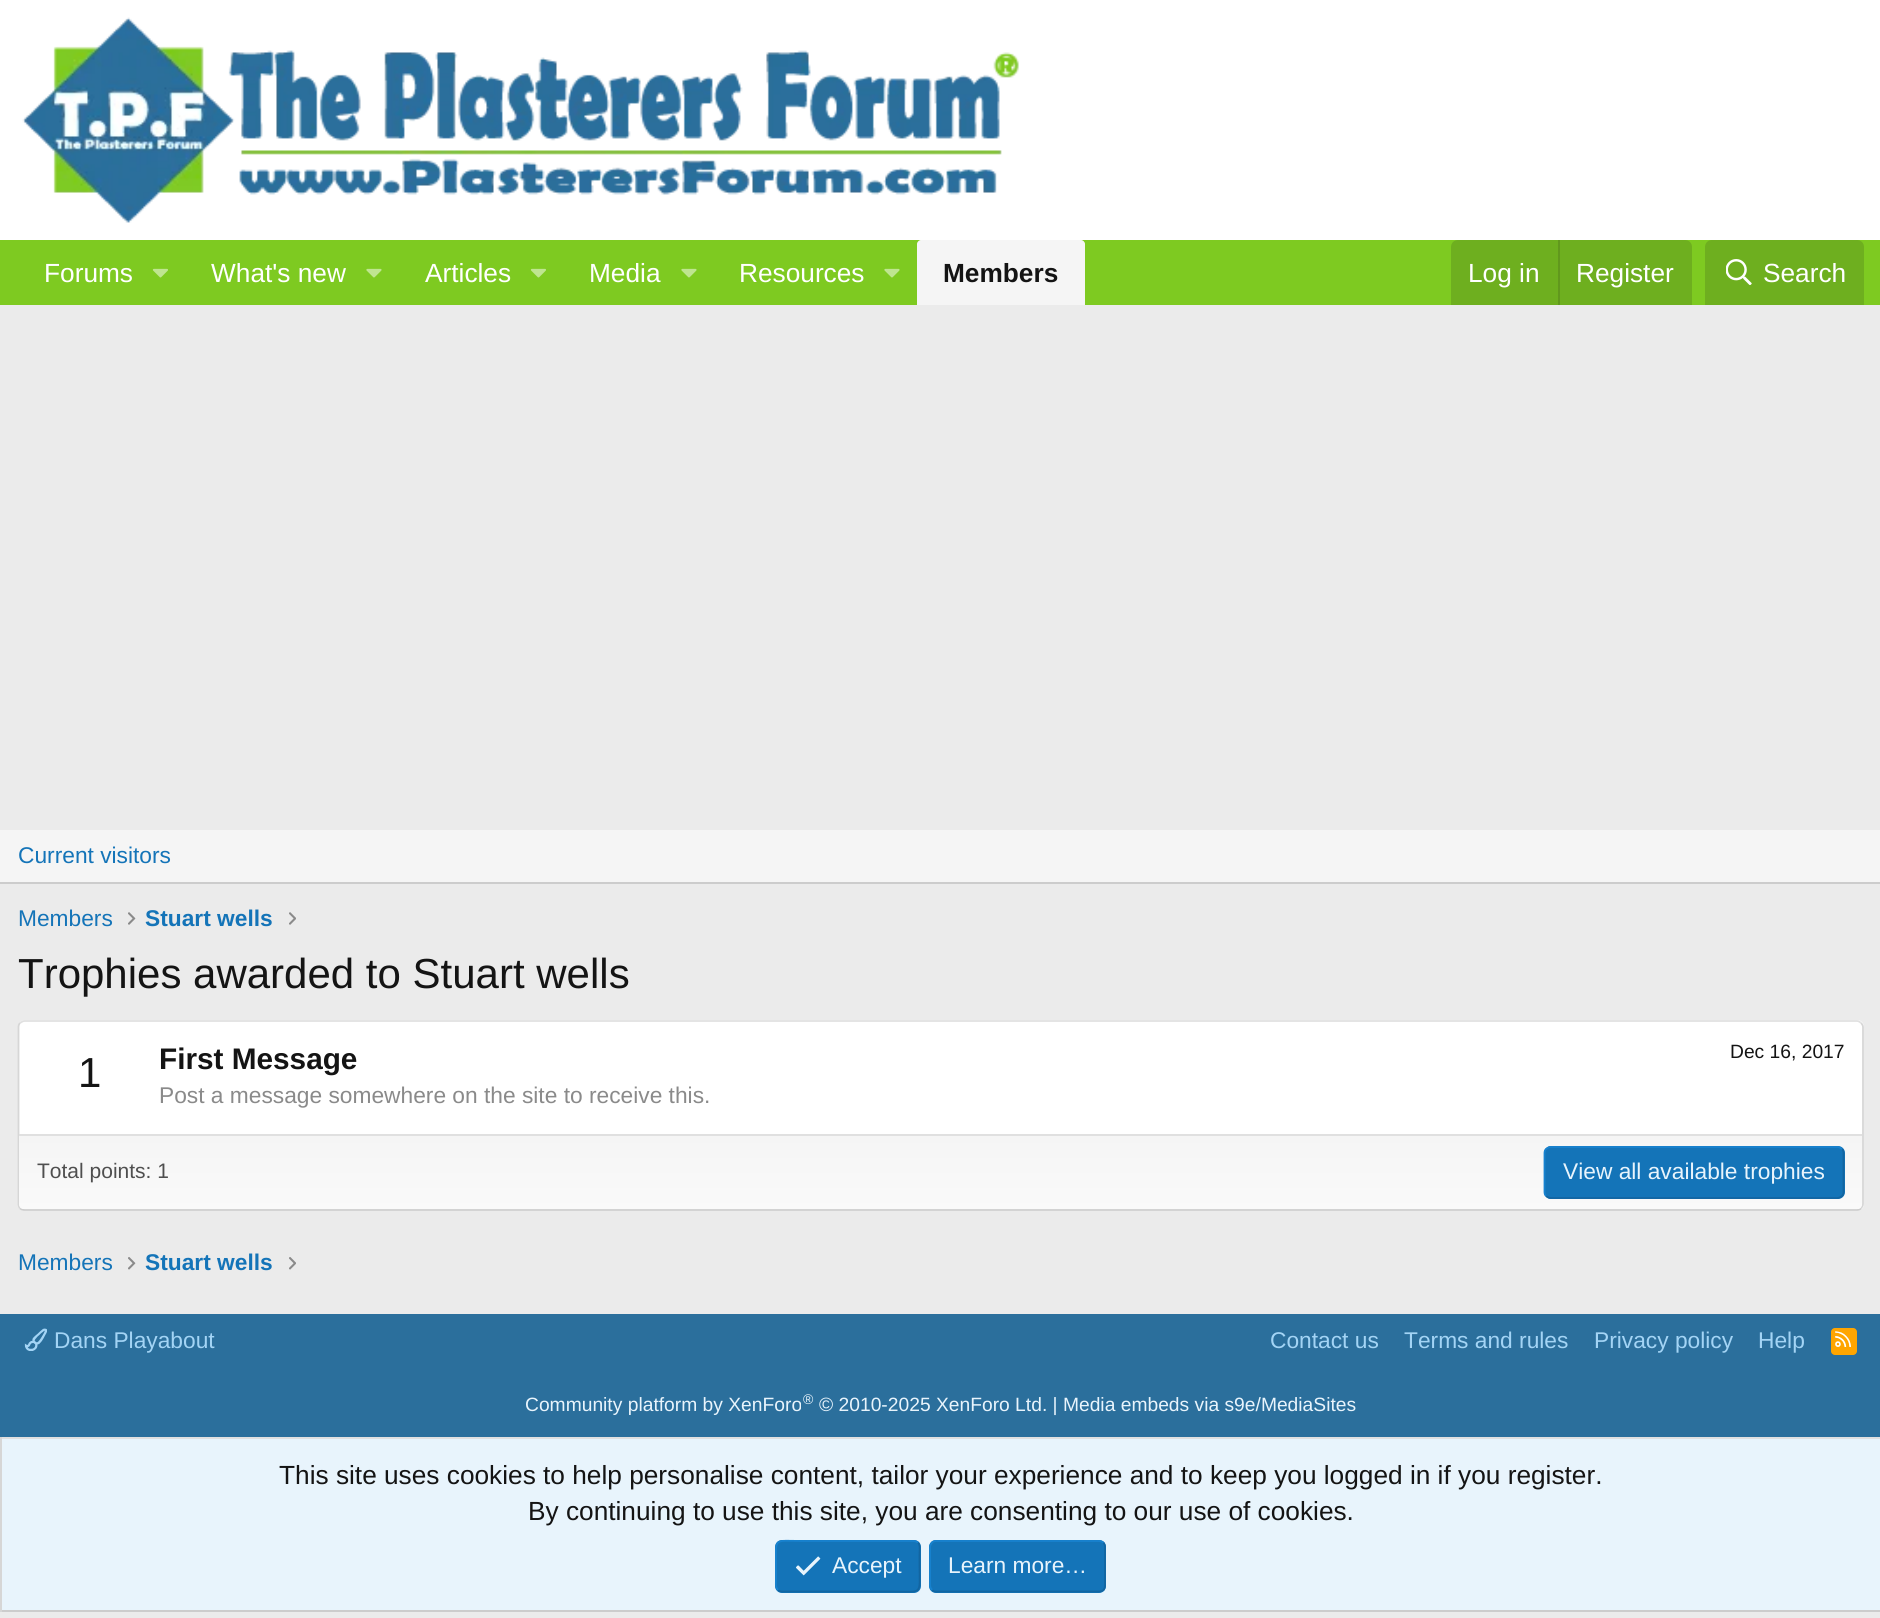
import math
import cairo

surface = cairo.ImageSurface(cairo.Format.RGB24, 1880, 1618)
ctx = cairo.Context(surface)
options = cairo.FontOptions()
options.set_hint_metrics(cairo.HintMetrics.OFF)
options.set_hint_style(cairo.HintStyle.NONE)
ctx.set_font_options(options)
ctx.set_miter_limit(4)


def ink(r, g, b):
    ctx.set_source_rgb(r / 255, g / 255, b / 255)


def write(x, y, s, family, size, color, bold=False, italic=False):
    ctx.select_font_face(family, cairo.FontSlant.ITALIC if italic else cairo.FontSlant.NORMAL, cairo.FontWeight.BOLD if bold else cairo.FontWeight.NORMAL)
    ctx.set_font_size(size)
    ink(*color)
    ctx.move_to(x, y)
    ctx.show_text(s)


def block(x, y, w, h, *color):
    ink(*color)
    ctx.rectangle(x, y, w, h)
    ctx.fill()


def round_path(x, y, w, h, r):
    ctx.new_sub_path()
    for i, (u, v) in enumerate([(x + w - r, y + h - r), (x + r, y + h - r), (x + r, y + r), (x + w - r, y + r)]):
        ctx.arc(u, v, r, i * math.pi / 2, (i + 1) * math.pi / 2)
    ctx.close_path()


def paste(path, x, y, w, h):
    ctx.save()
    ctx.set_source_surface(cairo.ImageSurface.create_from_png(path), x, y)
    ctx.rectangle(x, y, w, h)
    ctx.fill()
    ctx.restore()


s1 = dict(family="Liberation Sans", size=26.25, color=(255, 255, 255))
s2 = dict(family="Liberation Sans", size=26.25, color=(20, 20, 20), bold=True)
s3 = dict(family="Liberation Sans", size=22.75, color=(20, 116, 184))
s4 = dict(family="Liberation Sans", size=22.75, color=(20, 116, 184), bold=True)
s5 = dict(family="Liberation Sans", size=42, color=(20, 20, 20))
s6 = dict(family="Liberation Sans", size=29.75, color=(20, 20, 20), bold=True)
s7 = dict(family="Liberation Sans", size=19.25, color=(20, 20, 20))
s8 = dict(family="Liberation Sans", size=22.75, color=(138, 138, 138))
s9 = dict(family="Liberation Sans", size=21, color=(79, 79, 79))
s10 = dict(family="Liberation Sans", size=22.75, color=(232, 244, 252))
s11 = dict(family="Liberation Sans", size=22.75, color=(163, 212, 245))
s12 = dict(family="Liberation Sans", size=19.25, color=(232, 244, 252))
s13 = dict(family="Liberation Sans", size=14, color=(232, 244, 252))
s14 = dict(family="Liberation Sans", size=26.25, color=(20, 20, 20))

ink(235, 235, 235)
ctx.paint()
block(0, 0, 1880, 240, 255, 255, 255)
paste("pic1.png", 22, 17, 997, 206)
block(0, 240, 1880, 65, 126, 202, 33)
write(44, 282, "Forums", **s1)
paste("pic2.png", 152, 268, 16, 10)
write(211, 282, "What's new", **s1)
paste("pic3.png", 366, 268, 16, 10)
write(425, 282, "Articles", **s1)
paste("pic2.png", 530, 268, 16, 10)
write(589, 282, "Media", **s1)
paste("pic3.png", 681, 268, 16, 10)
write(739, 282, "Resources", **s1)
paste("pic3.png", 884, 268, 16, 10)
ink(245, 245, 245)
ctx.new_path()
ctx.move_to(921, 240)
ctx.line_to(1081, 240)
ctx.curve_to(1083, 240, 1085, 242, 1085, 244)
ctx.line_to(1085, 305)
ctx.line_to(917, 305)
ctx.line_to(917, 244)
ctx.curve_to(917, 242, 919, 240, 921, 240)
ctx.close_path()
ctx.fill()
write(943, 282, "Members", **s2)
ink(110, 175, 31)
ctx.new_path()
ctx.move_to(1458, 240)
ctx.line_to(1685, 240)
ctx.curve_to(1689, 240, 1692, 243, 1692, 247)
ctx.line_to(1692, 305)
ctx.line_to(1451, 305)
ctx.line_to(1451, 247)
ctx.curve_to(1451, 243, 1454, 240, 1458, 240)
ctx.close_path()
ctx.fill()
write(1468, 282, "Log in", **s1)
block(1558, 240, 2, 65, 97, 152, 29)
write(1576, 282, "Register", **s1)
ink(110, 175, 31)
ctx.new_path()
ctx.move_to(1712, 240)
ctx.line_to(1857, 240)
ctx.curve_to(1861, 240, 1864, 243, 1864, 247)
ctx.line_to(1864, 305)
ctx.line_to(1705, 305)
ctx.line_to(1705, 247)
ctx.curve_to(1705, 243, 1708, 240, 1712, 240)
ctx.close_path()
ctx.fill()
paste("pic4.png", 1726, 259, 26, 26)
write(1763, 282, "Search", **s1)
block(0, 830, 1880, 52, 245, 245, 245)
block(0, 882, 1880, 2, 204, 204, 204)
write(18, 863, "Current visitors", **s3)
write(18, 926, "Members", **s3)
paste("pic5.png", 128, 912, 8, 13)
write(145, 926, "Stuart wells", **s4)
paste("pic6.png", 289, 912, 7, 13)
write(18, 988, "Trophies awarded to Stuart wells", **s5)
ink(255, 255, 255)
round_path(18, 1020, 1846, 191, 7)
ctx.fill()
ctx.new_path()
ctx.move_to(20, 1023)
ctx.curve_to(21.5, 1022, 23, 1021, 24.5, 1021)
ctx.line_to(1857, 1021)
ctx.curve_to(1858.5, 1021, 1860, 1022, 1861, 1023)
ink(224, 224, 224)
ctx.set_line_width(1.8)
ctx.stroke()
ctx.new_path()
ctx.move_to(1861, 1023)
ctx.curve_to(1862, 1024, 1863, 1025.5, 1863, 1027)
ctx.line_to(1863, 1204)
ctx.curve_to(1863, 1205.5, 1862, 1207, 1861, 1208.5)
ink(214, 214, 214)
ctx.stroke()
ctx.new_path()
ctx.move_to(1861, 1208.5)
ctx.curve_to(1860, 1209.5, 1858.5, 1210, 1857, 1210)
ctx.line_to(24.5, 1210)
ctx.curve_to(23, 1210, 21.5, 1209.5, 20, 1208.5)
ink(204, 204, 204)
ctx.stroke()
ctx.new_path()
ctx.move_to(20, 1208.5)
ctx.curve_to(19, 1207, 18.5, 1205.5, 18.5, 1204)
ctx.line_to(18.5, 1027)
ctx.curve_to(18.5, 1025.5, 19, 1024, 20, 1023)
ink(214, 214, 214)
ctx.stroke()
write(78, 1087, "1", **s5)
write(159, 1069, "First Message", **s6)
write(1730, 1058, "Dec 16, 2017", **s7)
write(159, 1103, "Post a message somewhere on the site to receive this.", **s8)
gradient = cairo.LinearGradient(941, 1136, 941, 1209)
gradient.add_color_stop_rgba(0, 0.961, 0.961, 0.961, 1)
gradient.add_color_stop_rgba(1, 0.98, 0.98, 0.98, 1)
ctx.set_source(gradient)
ctx.new_path()
ctx.move_to(19, 1136)
ctx.line_to(1862, 1136)
ctx.line_to(1862, 1204)
ctx.curve_to(1862, 1207, 1860, 1209, 1857, 1209)
ctx.line_to(24, 1209)
ctx.curve_to(21, 1209, 19, 1207, 19, 1204)
ctx.close_path()
ctx.fill()
block(19, 1134, 1843, 2, 224, 224, 224)
write(37, 1178, "Total points: 1", **s9)
ink(20, 116, 184)
round_path(1544, 1146, 301, 53, 7)
ctx.fill()
ctx.new_path()
ctx.move_to(1842, 1149)
ctx.curve_to(1843, 1150, 1843.5, 1151.5, 1843.5, 1153)
ctx.line_to(1843.5, 1192)
ctx.curve_to(1843.5, 1193.5, 1843, 1195, 1842, 1196)
ctx.curve_to(1840.5, 1197, 1839, 1198, 1837.5, 1198)
ctx.line_to(1550.5, 1198)
ctx.curve_to(1549, 1198, 1547.5, 1197, 1546, 1196)
ink(18, 101, 161)
ctx.stroke()
ctx.new_path()
ctx.move_to(1546, 1196)
ctx.curve_to(1545, 1195, 1544.5, 1193.5, 1544.5, 1192)
ctx.line_to(1544.5, 1153)
ctx.curve_to(1544.5, 1151.5, 1545, 1150, 1546, 1149)
ctx.curve_to(1547.5, 1148, 1549, 1147, 1550.5, 1147)
ctx.line_to(1837.5, 1147)
ctx.curve_to(1839, 1147, 1840.5, 1148, 1842, 1149)
ink(23, 130, 207)
ctx.stroke()
write(1563, 1179, "View all available trophies", **s10)
write(18, 1270, "Members", **s3)
paste("pic7.png", 128, 1257, 8, 13)
write(145, 1270, "Stuart wells", **s4)
paste("pic8.png", 289, 1257, 7, 13)
block(0, 1314, 1880, 123, 43, 111, 156)
paste("pic9.png", 24, 1328, 23, 23)
write(54, 1348, "Dans Playabout", **s11)
write(1270, 1348, "Contact us", **s11)
write(1404, 1348, "Terms and rules", **s11)
write(1594, 1348, "Privacy policy", **s11)
write(1758, 1348, "Help", **s11)
ink(255, 165, 0)
round_path(1831, 1328, 26, 27, 4)
ctx.fill()
paste("pic10.png", 1835, 1331, 16, 16)
write(525, 1411, "Community platform by XenForo", **s12)
write(803, 1404, "®", **s13)
write(819, 1411, "© 2010-2025 XenForo Ltd. | Media embeds via s9e/MediaSites", **s12)
block(2, 1439, 1878, 171, 232, 244, 252)
block(0, 1437, 1880, 2, 224, 224, 224)
block(0, 1610, 1880, 2, 204, 204, 204)
block(0, 1437, 2, 175, 214, 214, 214)
write(279, 1484, "This site uses cookies to help personalise content, tailor your experience and to keep you logged in if you register.", **s14)
write(528, 1520, "By continuing to use this site, you are consenting to our use of cookies.", **s14)
ink(20, 116, 184)
round_path(775, 1540, 146, 53, 7)
ctx.fill()
ctx.new_path()
ctx.move_to(918, 1542.5)
ctx.curve_to(920.5, 1545.5, 919.5, 1550, 919.5, 1553.5)
ctx.line_to(919.5, 1566)
ctx.curve_to(919.5, 1596, 923.5, 1591.5, 891.5, 1591.5)
ctx.line_to(782, 1591.5)
ctx.curve_to(780.5, 1591.5, 779, 1591, 778, 1590)
ink(18, 101, 161)
ctx.stroke()
ctx.new_path()
ctx.move_to(778, 1590)
ctx.curve_to(775, 1587, 776, 1582.5, 776, 1579)
ctx.line_to(776, 1566)
ctx.curve_to(776, 1536.5, 772.5, 1541, 804, 1541)
ctx.line_to(913.5, 1541)
ctx.curve_to(915, 1541, 916.5, 1541.5, 918, 1542.5)
ink(23, 130, 207)
ctx.stroke()
paste("pic11.png", 796, 1556, 25, 20)
write(832, 1573, "Accept", **s10)
ink(20, 116, 184)
round_path(929, 1540, 177, 53, 7)
ctx.fill()
ctx.new_path()
ctx.move_to(1103.5, 1542.5)
ctx.curve_to(1104.5, 1544, 1105, 1545.5, 1105, 1547)
ctx.line_to(1105, 1585.5)
ctx.curve_to(1105, 1587, 1104.5, 1588.5, 1103.5, 1590)
ctx.curve_to(1102, 1591, 1100.5, 1591.5, 1099, 1591.5)
ctx.line_to(936, 1591.5)
ctx.curve_to(934.5, 1591.5, 933, 1591, 932, 1590)
ink(18, 101, 161)
ctx.stroke()
ctx.new_path()
ctx.move_to(932, 1590)
ctx.curve_to(931, 1588.5, 930, 1587, 930, 1585.5)
ctx.line_to(930, 1547)
ctx.curve_to(930, 1545.5, 931, 1544, 932, 1542.5)
ctx.curve_to(933, 1541.5, 934.5, 1541, 936, 1541)
ctx.line_to(1099, 1541)
ctx.curve_to(1100.5, 1541, 1102, 1541.5, 1103.5, 1542.5)
ink(23, 130, 207)
ctx.stroke()
write(948, 1573, "Learn more…", **s10)
surface.write_to_png("screenshot.png")
